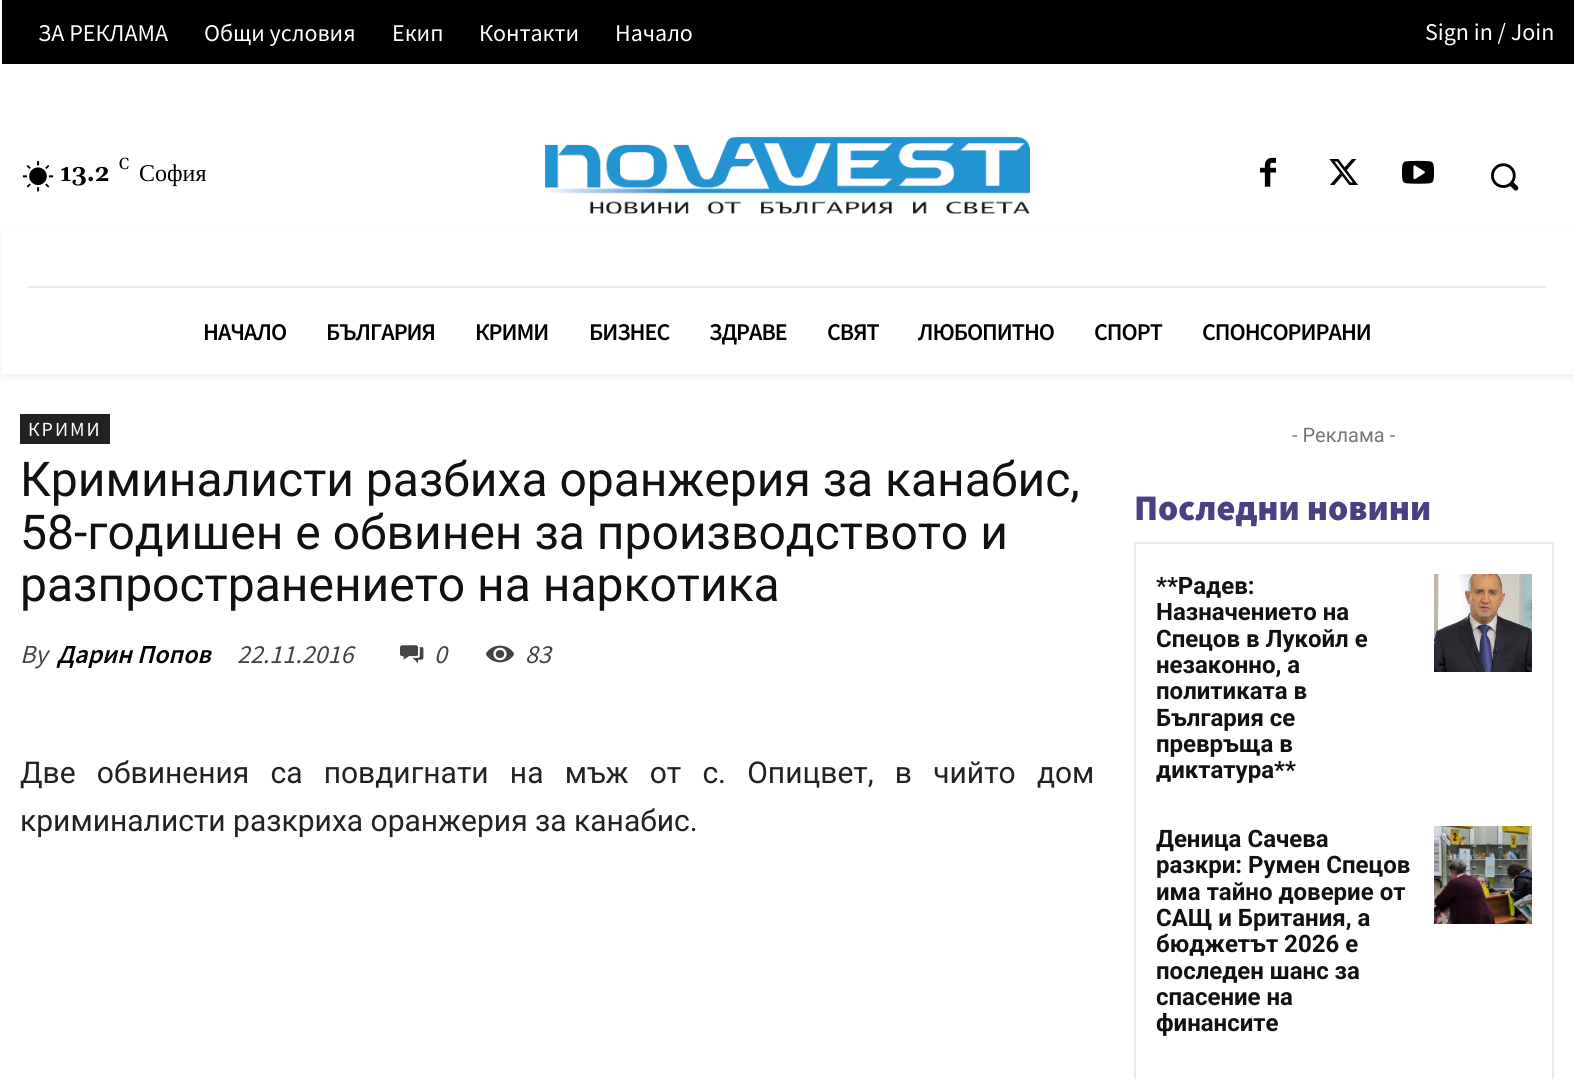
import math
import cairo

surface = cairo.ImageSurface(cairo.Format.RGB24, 1574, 1079)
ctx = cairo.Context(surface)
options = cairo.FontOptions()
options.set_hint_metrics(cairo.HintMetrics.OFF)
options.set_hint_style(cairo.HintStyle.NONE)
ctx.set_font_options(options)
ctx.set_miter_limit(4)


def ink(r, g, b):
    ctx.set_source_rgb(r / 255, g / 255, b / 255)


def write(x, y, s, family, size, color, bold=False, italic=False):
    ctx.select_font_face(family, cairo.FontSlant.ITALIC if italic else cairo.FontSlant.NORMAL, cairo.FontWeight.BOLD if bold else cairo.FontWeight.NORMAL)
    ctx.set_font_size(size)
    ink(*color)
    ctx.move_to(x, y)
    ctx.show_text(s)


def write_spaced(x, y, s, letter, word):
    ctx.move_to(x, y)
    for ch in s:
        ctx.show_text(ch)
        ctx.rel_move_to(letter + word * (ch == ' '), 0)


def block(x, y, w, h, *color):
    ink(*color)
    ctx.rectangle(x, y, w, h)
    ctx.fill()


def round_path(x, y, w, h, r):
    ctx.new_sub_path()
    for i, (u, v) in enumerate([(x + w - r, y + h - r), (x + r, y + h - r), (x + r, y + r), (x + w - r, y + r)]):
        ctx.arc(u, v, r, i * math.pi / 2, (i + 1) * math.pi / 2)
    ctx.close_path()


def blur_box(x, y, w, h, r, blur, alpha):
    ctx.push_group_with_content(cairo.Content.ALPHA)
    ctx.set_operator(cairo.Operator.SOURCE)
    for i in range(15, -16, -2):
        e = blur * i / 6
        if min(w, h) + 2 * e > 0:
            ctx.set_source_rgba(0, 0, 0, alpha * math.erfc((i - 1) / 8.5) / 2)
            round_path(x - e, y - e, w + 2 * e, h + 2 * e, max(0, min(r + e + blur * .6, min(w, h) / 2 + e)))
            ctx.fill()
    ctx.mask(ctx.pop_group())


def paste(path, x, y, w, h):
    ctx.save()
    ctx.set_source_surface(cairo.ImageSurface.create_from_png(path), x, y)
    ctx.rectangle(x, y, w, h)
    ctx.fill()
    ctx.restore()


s1 = dict(family="Source Sans Pro", size=24, color=(255, 255, 255))
s2 = dict(family="Gelasio", size=16, color=(0, 0, 0))
s3 = dict(family="Gelasio", size=24, color=(0, 0, 0), bold=True)
s4 = dict(family="Liberation Serif", size=24, color=(0, 0, 0))
s5 = dict(family="Roboto", size=48, color=(17, 17, 17))
s6 = dict(family="Source Sans Pro", size=26, color=(68, 68, 68), italic=True)
s7 = dict(family="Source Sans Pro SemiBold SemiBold", size=26, color=(0, 0, 0), italic=True)
s8 = dict(family="Roboto", size=30, color=(34, 34, 34))
s9 = dict(family="Roboto", size=20, color=(118, 118, 118))
s10 = dict(family="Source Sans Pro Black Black", size=36, color=(76, 64, 132))
s11 = dict(family="Roboto", size=24, color=(17, 17, 17), bold=True)

ink(255, 255, 255)
ctx.paint()
block(2, 0, 1572, 64, 0, 0, 0)
write(38, 41, "ЗА РЕКЛАМА", **s1)
write(204, 41, "Общи условия", **s1)
write(392, 41, "Екип", **s1)
write(479, 41, "Контакти", **s1)
write(615, 41, "Начало", **s1)
write(1425, 40, "Sign in / Join", **s1)
paste("pic1.png", 22, 161, 32, 31)
write(119, 169, "C", **s2)
write(60, 181, "13.2", **s3)
write(139, 181, "София", **s4)
paste("pic2.png", 545, 136, 485, 78)
paste("pic3.png", 1260, 157, 16, 30)
paste("pic4.png", 1329, 159, 29, 26)
paste("pic5.png", 1402, 160, 32, 24)
paste("pic6.png", 1491, 163, 28, 28)
block(28, 286, 1518, 2, 234, 234, 234)
ctx.save()
ctx.set_fill_rule(cairo.FillRule.EVEN_ODD)
ctx.new_path()
ctx.move_to(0, 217)
ctx.line_to(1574, 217)
ctx.line_to(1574, 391)
ctx.line_to(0, 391)
ctx.close_path()
ctx.move_to(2, 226)
ctx.line_to(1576, 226)
ctx.line_to(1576, 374)
ctx.line_to(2, 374)
ctx.close_path()
ctx.clip()
ink(0, 0, 0)
blur_box(2, 230, 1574, 148, 0, 4, 0.06)
ctx.restore()
ctx.select_font_face("Source Sans Pro SemiBold SemiBold")
ink(0, 0, 0)
write_spaced(203, 340, "НАЧАЛО", -1, 0)
write_spaced(326, 340, "БЪЛГАРИЯ", -1, 0)
write_spaced(475, 340, "КРИМИ", -1, 0)
write_spaced(589, 340, "БИЗНЕС", -1, 0)
write_spaced(709, 340, "ЗДРАВЕ", -1, 0)
write_spaced(827, 340, "СВЯТ", -1, 0)
write_spaced(918, 340, "ЛЮБОПИТНО", -1, 0)
write_spaced(1094, 340, "СПОРТ", -1, 0)
write_spaced(1202, 340, "СПОНСОРИРАНИ", -1, 0)
block(20, 414, 90, 30, 34, 34, 34)
ctx.select_font_face("Source Sans Pro")
ctx.set_font_size(20)
ink(255, 255, 255)
write_spaced(28, 436, "КРИМИ", 2, 0)
write(20, 496, "Криминалисти разбиха оранжерия за канабис,", **s5)
write(20, 549, "58-годишен е обвинен за производството и", **s5)
write(20, 601, "разпространението на наркотика", **s5)
write(20, 663, "By", **s6)
write(57, 663, "Дарин Попов", **s7)
write(237, 663, "22.11.2016", **s6)
paste("pic7.png", 400, 645, 24, 19)
write(434, 663, "0", **s6)
paste("pic8.png", 486, 645, 28, 18)
write(525, 663, "83", **s6)
ctx.select_font_face("Roboto")
ctx.set_font_size(30)
ink(34, 34, 34)
write_spaced(20, 783, "Две обвинения са повдигнати на мъж от с. Опицвет, в чийто дом", 0, 13.75)
write(20, 831, "криминалисти разкриха оранжерия за канабис.", **s8)
write(1292, 442, "- Реклама -", **s9)
write(1134, 520, "Последни новини", **s10)
ctx.rectangle(1135, 543, 418, 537)
ink(234, 234, 234)
ctx.stroke()
write(1156, 594, "**Радев:", **s11)
write(1156, 620, "Назначението на", **s11)
write(1156, 647, "Спецов в Лукойл е", **s11)
write(1156, 673, "незаконно, а", **s11)
write(1156, 699, "политиката в", **s11)
write(1156, 726, "България се", **s11)
write(1156, 752, "превръща в", **s11)
write(1156, 778, "диктатура**", **s11)
paste("pic9.png", 1434, 574, 98, 98)
write(1156, 847, "Деница Сачева", **s11)
write(1156, 873, "разкри: Румен Спецов", **s11)
write(1156, 900, "има тайно доверие от", **s11)
write(1156, 926, "САЩ и Британия, а", **s11)
write(1156, 952, "бюджетът 2026 е", **s11)
write(1156, 979, "последен шанс за", **s11)
write(1156, 1005, "спасение на", **s11)
write(1156, 1031, "финансите", **s11)
paste("pic10.png", 1434, 826, 98, 98)
surface.write_to_png("screenshot.png")
